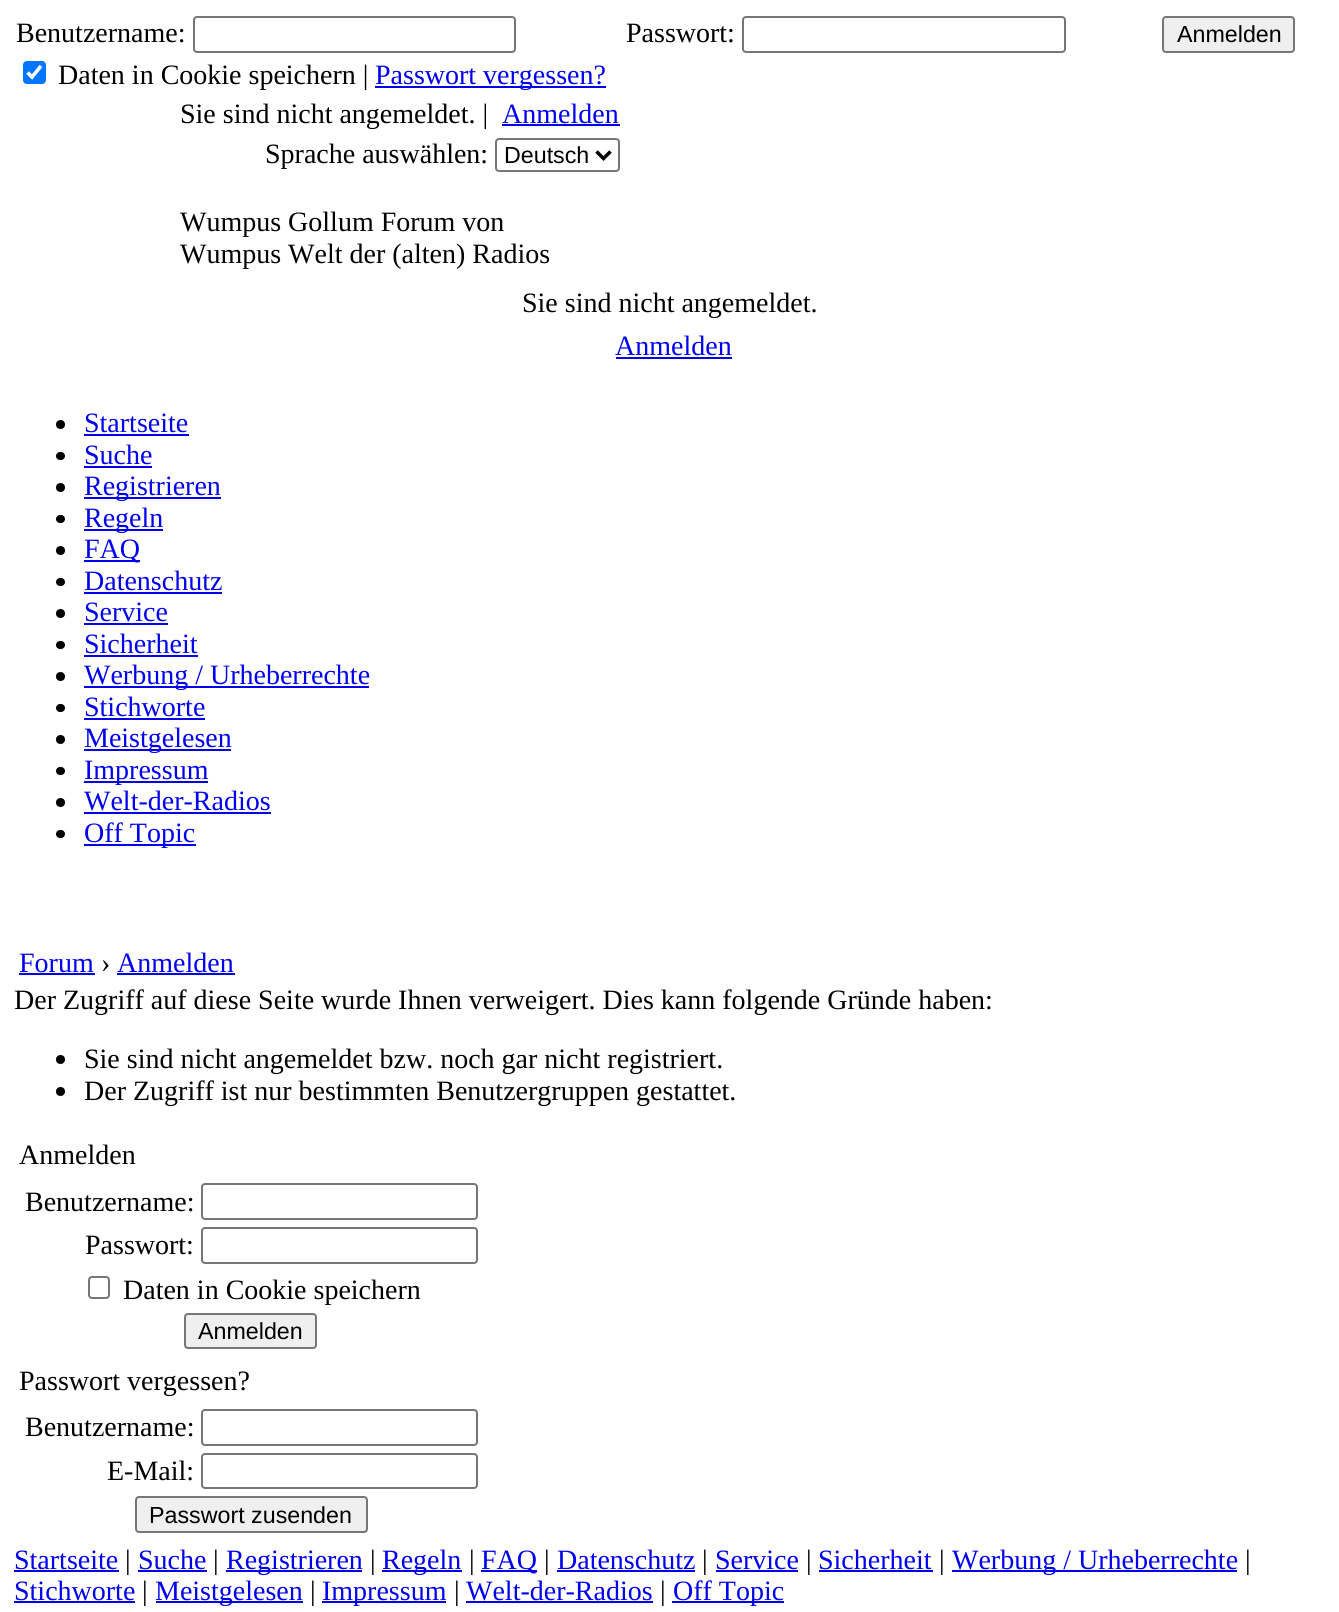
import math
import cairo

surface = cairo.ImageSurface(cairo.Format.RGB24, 1339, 1612)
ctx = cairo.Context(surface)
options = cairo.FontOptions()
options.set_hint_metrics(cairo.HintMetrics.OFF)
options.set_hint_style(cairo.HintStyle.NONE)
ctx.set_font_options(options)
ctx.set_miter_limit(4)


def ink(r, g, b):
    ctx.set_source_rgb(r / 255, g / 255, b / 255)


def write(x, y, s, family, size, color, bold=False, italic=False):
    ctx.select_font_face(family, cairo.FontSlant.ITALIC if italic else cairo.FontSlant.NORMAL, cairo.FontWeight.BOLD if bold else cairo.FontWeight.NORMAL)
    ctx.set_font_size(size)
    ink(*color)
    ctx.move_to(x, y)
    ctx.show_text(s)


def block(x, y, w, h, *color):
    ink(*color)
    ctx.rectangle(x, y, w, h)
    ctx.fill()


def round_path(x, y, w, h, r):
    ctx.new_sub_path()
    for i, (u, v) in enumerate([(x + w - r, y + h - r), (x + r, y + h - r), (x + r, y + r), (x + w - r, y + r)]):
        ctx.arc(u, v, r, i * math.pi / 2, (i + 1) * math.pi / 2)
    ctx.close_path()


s1 = dict(family="Liberation Serif", size=28, color=(0, 0, 0))
s2 = dict(family="Liberation Sans", size=23.25, color=(0, 0, 0))
s3 = dict(family="Liberation Serif", size=28, color=(0, 0, 238))

ink(255, 255, 255)
ctx.paint()
write(16, 42, "Benutzername:", **s1)
round_path(194, 17, 321, 35, 3)
ink(118, 118, 118)
ctx.stroke()
write(626, 42, "Passwort:", **s1)
round_path(743, 17, 322, 35, 3)
ink(118, 118, 118)
ctx.stroke()
ink(239, 239, 239)
round_path(1163, 17, 131, 35, 3)
ctx.fill_preserve()
ink(118, 118, 118)
ctx.stroke()
write(1177, 42, "Anmelden", **s2)
ink(0, 117, 255)
round_path(23, 61, 23, 23, 4)
ctx.fill()
ctx.new_path()
ctx.move_to(27.5, 72.5)
ctx.line_to(32, 77)
ctx.line_to(41, 66)
ink(255, 255, 255)
ctx.set_line_width(3.6)
ctx.stroke()
write(58, 84, "Daten in Cookie speichern |", **s1)
block(375, 86, 231, 2, 0, 0, 238)
write(375, 84, "Passwort vergessen?", **s3)
write(180, 123, "Sie sind nicht angemeldet. |", **s1)
write(502, 123, "Anmelden", **s3)
block(502, 124, 118, 2, 0, 0, 238)
write(265, 163, "Sprache auswählen:", **s1)
round_path(496, 139, 123, 32, 3)
ink(118, 118, 118)
ctx.set_line_width(2)
ctx.stroke()
ctx.new_path()
ctx.move_to(596.5, 151.5)
ctx.line_to(603.5, 158.5)
ctx.line_to(610.5, 151.5)
ink(0, 0, 0)
ctx.set_line_width(3.5)
ctx.stroke()
write(504, 163, "Deutsch", **s2)
write(180, 231, "Wumpus Gollum Forum von", **s1)
write(180, 263, "Wumpus Welt der (alten) Radios", **s1)
write(522, 312, "Sie sind nicht angemeldet.", **s1)
write(615, 355, "Anmelden", **s3)
block(616, 357, 116, 2, 0, 0, 238)
ink(0, 0, 0)
ctx.new_path()
ctx.arc(60.5, 424.5, 4.5, 0, 2 * math.pi)
ctx.fill()
write(84, 432, "Startseite", **s3)
block(84, 434, 105, 2, 0, 0, 238)
ink(0, 0, 0)
round_path(56, 452, 9, 8, 4)
ctx.fill()
write(84, 464, "Suche", **s3)
block(84, 466, 68, 2, 0, 0, 238)
ink(0, 0, 0)
ctx.new_path()
ctx.arc(60.5, 487.5, 4.5, 0, 2 * math.pi)
ctx.fill()
block(84, 497, 137, 2, 0, 0, 238)
write(84, 495, "Registrieren", **s3)
ink(0, 0, 0)
round_path(56, 515, 9, 8, 4)
ctx.fill()
block(84, 529, 79, 2, 0, 0, 238)
write(84, 527, "Regeln", **s3)
ink(0, 0, 0)
ctx.new_path()
ctx.arc(60.5, 550.5, 4.5, 0, 2 * math.pi)
ctx.fill()
block(84, 560, 56, 2, 0, 0, 238)
write(84, 558, "FAQ", **s3)
ink(0, 0, 0)
round_path(56, 578, 9, 8, 4)
ctx.fill()
write(84, 590, "Datenschutz", **s3)
block(84, 592, 138, 2, 0, 0, 238)
ink(0, 0, 0)
ctx.new_path()
ctx.arc(60.5, 613.5, 4.5, 0, 2 * math.pi)
ctx.fill()
write(84, 621, "Service", **s3)
block(84, 623, 84, 2, 0, 0, 238)
ink(0, 0, 0)
round_path(56, 641, 9, 8, 4)
ctx.fill()
write(84, 653, "Sicherheit", **s3)
block(84, 655, 114, 2, 0, 0, 238)
ink(0, 0, 0)
ctx.new_path()
ctx.arc(60.5, 676.5, 4.5, 0, 2 * math.pi)
ctx.fill()
block(84, 686, 285, 2, 0, 0, 238)
write(84, 684, "Werbung / Urheberrechte", **s3)
ink(0, 0, 0)
round_path(56, 704, 9, 8, 4)
ctx.fill()
write(84, 716, "Stichworte", **s3)
block(84, 718, 121, 2, 0, 0, 238)
ink(0, 0, 0)
ctx.new_path()
ctx.arc(60.5, 739.5, 4.5, 0, 2 * math.pi)
ctx.fill()
block(84, 749, 147, 2, 0, 0, 238)
write(84, 747, "Meistgelesen", **s3)
ink(0, 0, 0)
round_path(56, 767, 9, 8, 4)
ctx.fill()
block(84, 781, 124, 2, 0, 0, 238)
write(84, 779, "Impressum", **s3)
ink(0, 0, 0)
ctx.new_path()
ctx.arc(60.5, 802.5, 4.5, 0, 2 * math.pi)
ctx.fill()
write(84, 810, "Welt-der-Radios", **s3)
block(84, 812, 187, 2, 0, 0, 238)
ink(0, 0, 0)
round_path(56, 830, 9, 8, 4)
ctx.fill()
block(84, 844, 112, 2, 0, 0, 238)
write(84, 842, "Off Topic", **s3)
write(19, 972, "Forum", **s3)
block(19, 973, 76, 2, 0, 0, 238)
write(101, 972, "›", **s1)
write(117, 972, "Anmelden", **s3)
block(117, 973, 118, 2, 0, 0, 238)
write(14, 1009, "Der Zugriff auf diese Seite wurde Ihnen verweigert. Dies kann folgende Gründe haben:", **s1)
ctx.new_path()
ctx.arc(60.5, 1059.5, 4.5, 0, 2 * math.pi)
ctx.fill()
write(84, 1068, "Sie sind nicht angemeldet bzw. noch gar nicht registriert.", **s1)
ctx.new_path()
ctx.arc(60.5, 1091.5, 4.5, 0, 2 * math.pi)
ctx.fill()
write(84, 1100, "Der Zugriff ist nur bestimmten Benutzergruppen gestattet.", **s1)
write(19, 1164, "Anmelden", **s1)
write(25, 1211, "Benutzername:", **s1)
round_path(202, 1184, 275, 35, 3)
ink(118, 118, 118)
ctx.set_line_width(2)
ctx.stroke()
write(85, 1254, "Passwort:", **s1)
round_path(202, 1228, 275, 35, 3)
ink(118, 118, 118)
ctx.stroke()
round_path(89, 1277, 20, 21, 3)
ctx.stroke()
write(123, 1299, "Daten in Cookie speichern", **s1)
ink(239, 239, 239)
round_path(185, 1314, 131, 34, 3)
ctx.fill_preserve()
ink(118, 118, 118)
ctx.stroke()
write(198, 1339, "Anmelden", **s2)
write(19, 1390, "Passwort vergessen?", **s1)
write(25, 1436, "Benutzername:", **s1)
round_path(202, 1410, 275, 35, 3)
ink(118, 118, 118)
ctx.stroke()
write(107, 1480, "E-Mail:", **s1)
round_path(202, 1454, 275, 34, 3)
ink(118, 118, 118)
ctx.stroke()
ink(239, 239, 239)
round_path(136, 1497, 231, 35, 3)
ctx.fill_preserve()
ink(118, 118, 118)
ctx.stroke()
write(149, 1523, "Passwort zusenden", **s2)
write(14, 1569, "Startseite", **s3)
block(14, 1570, 105, 2, 0, 0, 238)
write(125, 1569, "|", **s1)
write(138, 1569, "Suche", **s3)
block(138, 1570, 69, 2, 0, 0, 238)
write(213, 1569, "|", **s1)
block(226, 1570, 136, 2, 0, 0, 238)
write(226, 1569, "Registrieren", **s3)
write(370, 1569, "|", **s1)
block(382, 1570, 80, 2, 0, 0, 238)
write(382, 1569, "Regeln", **s3)
write(469, 1569, "|", **s1)
block(481, 1570, 56, 2, 0, 0, 238)
write(481, 1569, "FAQ", **s3)
write(544, 1569, "|", **s1)
write(557, 1569, "Datenschutz", **s3)
block(557, 1570, 138, 2, 0, 0, 238)
write(702, 1569, "|", **s1)
write(715, 1569, "Service", **s3)
block(716, 1570, 82, 2, 0, 0, 238)
write(806, 1569, "|", **s1)
write(818, 1569, "Sicherheit", **s3)
block(819, 1570, 114, 2, 0, 0, 238)
write(939, 1569, "|", **s1)
block(952, 1570, 285, 2, 0, 0, 238)
write(952, 1569, "Werbung / Urheberrechte", **s3)
write(1245, 1569, "|", **s1)
write(14, 1600, "Stichworte", **s3)
block(14, 1601, 121, 2, 0, 0, 238)
write(142, 1600, "|", **s1)
block(156, 1601, 147, 2, 0, 0, 238)
write(155, 1600, "Meistgelesen", **s3)
write(310, 1600, "|", **s1)
block(322, 1601, 124, 2, 0, 0, 238)
write(322, 1600, "Impressum", **s3)
write(454, 1600, "|", **s1)
write(466, 1600, "Welt-der-Radios", **s3)
block(466, 1601, 187, 2, 0, 0, 238)
write(660, 1600, "|", **s1)
block(672, 1601, 112, 2, 0, 0, 238)
write(673, 1600, "Off Topic", **s3)
surface.write_to_png("screenshot.png")
